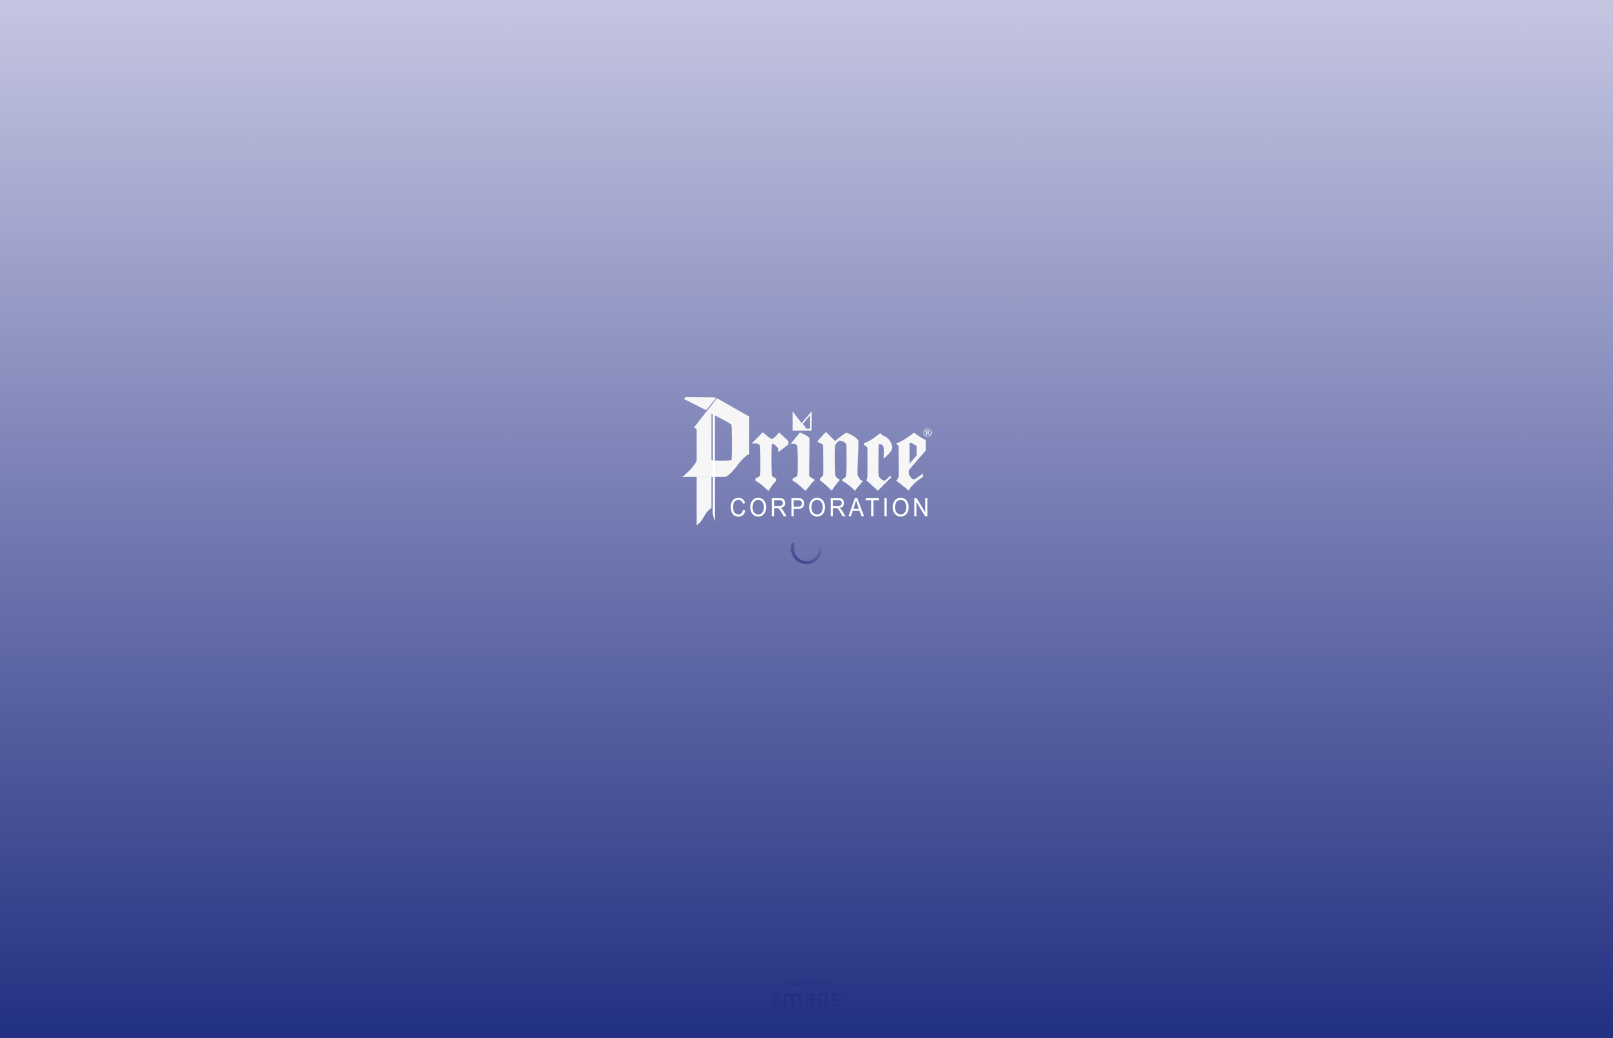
import math
import cairo

surface = cairo.ImageSurface(cairo.Format.RGB24, 1613, 1038)
ctx = cairo.Context(surface)
options = cairo.FontOptions()
options.set_hint_metrics(cairo.HintMetrics.OFF)
options.set_hint_style(cairo.HintStyle.NONE)
ctx.set_font_options(options)
ctx.set_miter_limit(4)


def ink(r, g, b):
    ctx.set_source_rgb(r / 255, g / 255, b / 255)


def paste(path, x, y, w, h):
    ctx.save()
    ctx.set_source_surface(cairo.ImageSurface.create_from_png(path), x, y)
    ctx.rectangle(x, y, w, h)
    ctx.fill()
    ctx.restore()


ink(255, 255, 255)
ctx.paint()
paste("pic1.png", 0, 0, 1613, 1038)
surface.write_to_png("screenshot.png")
